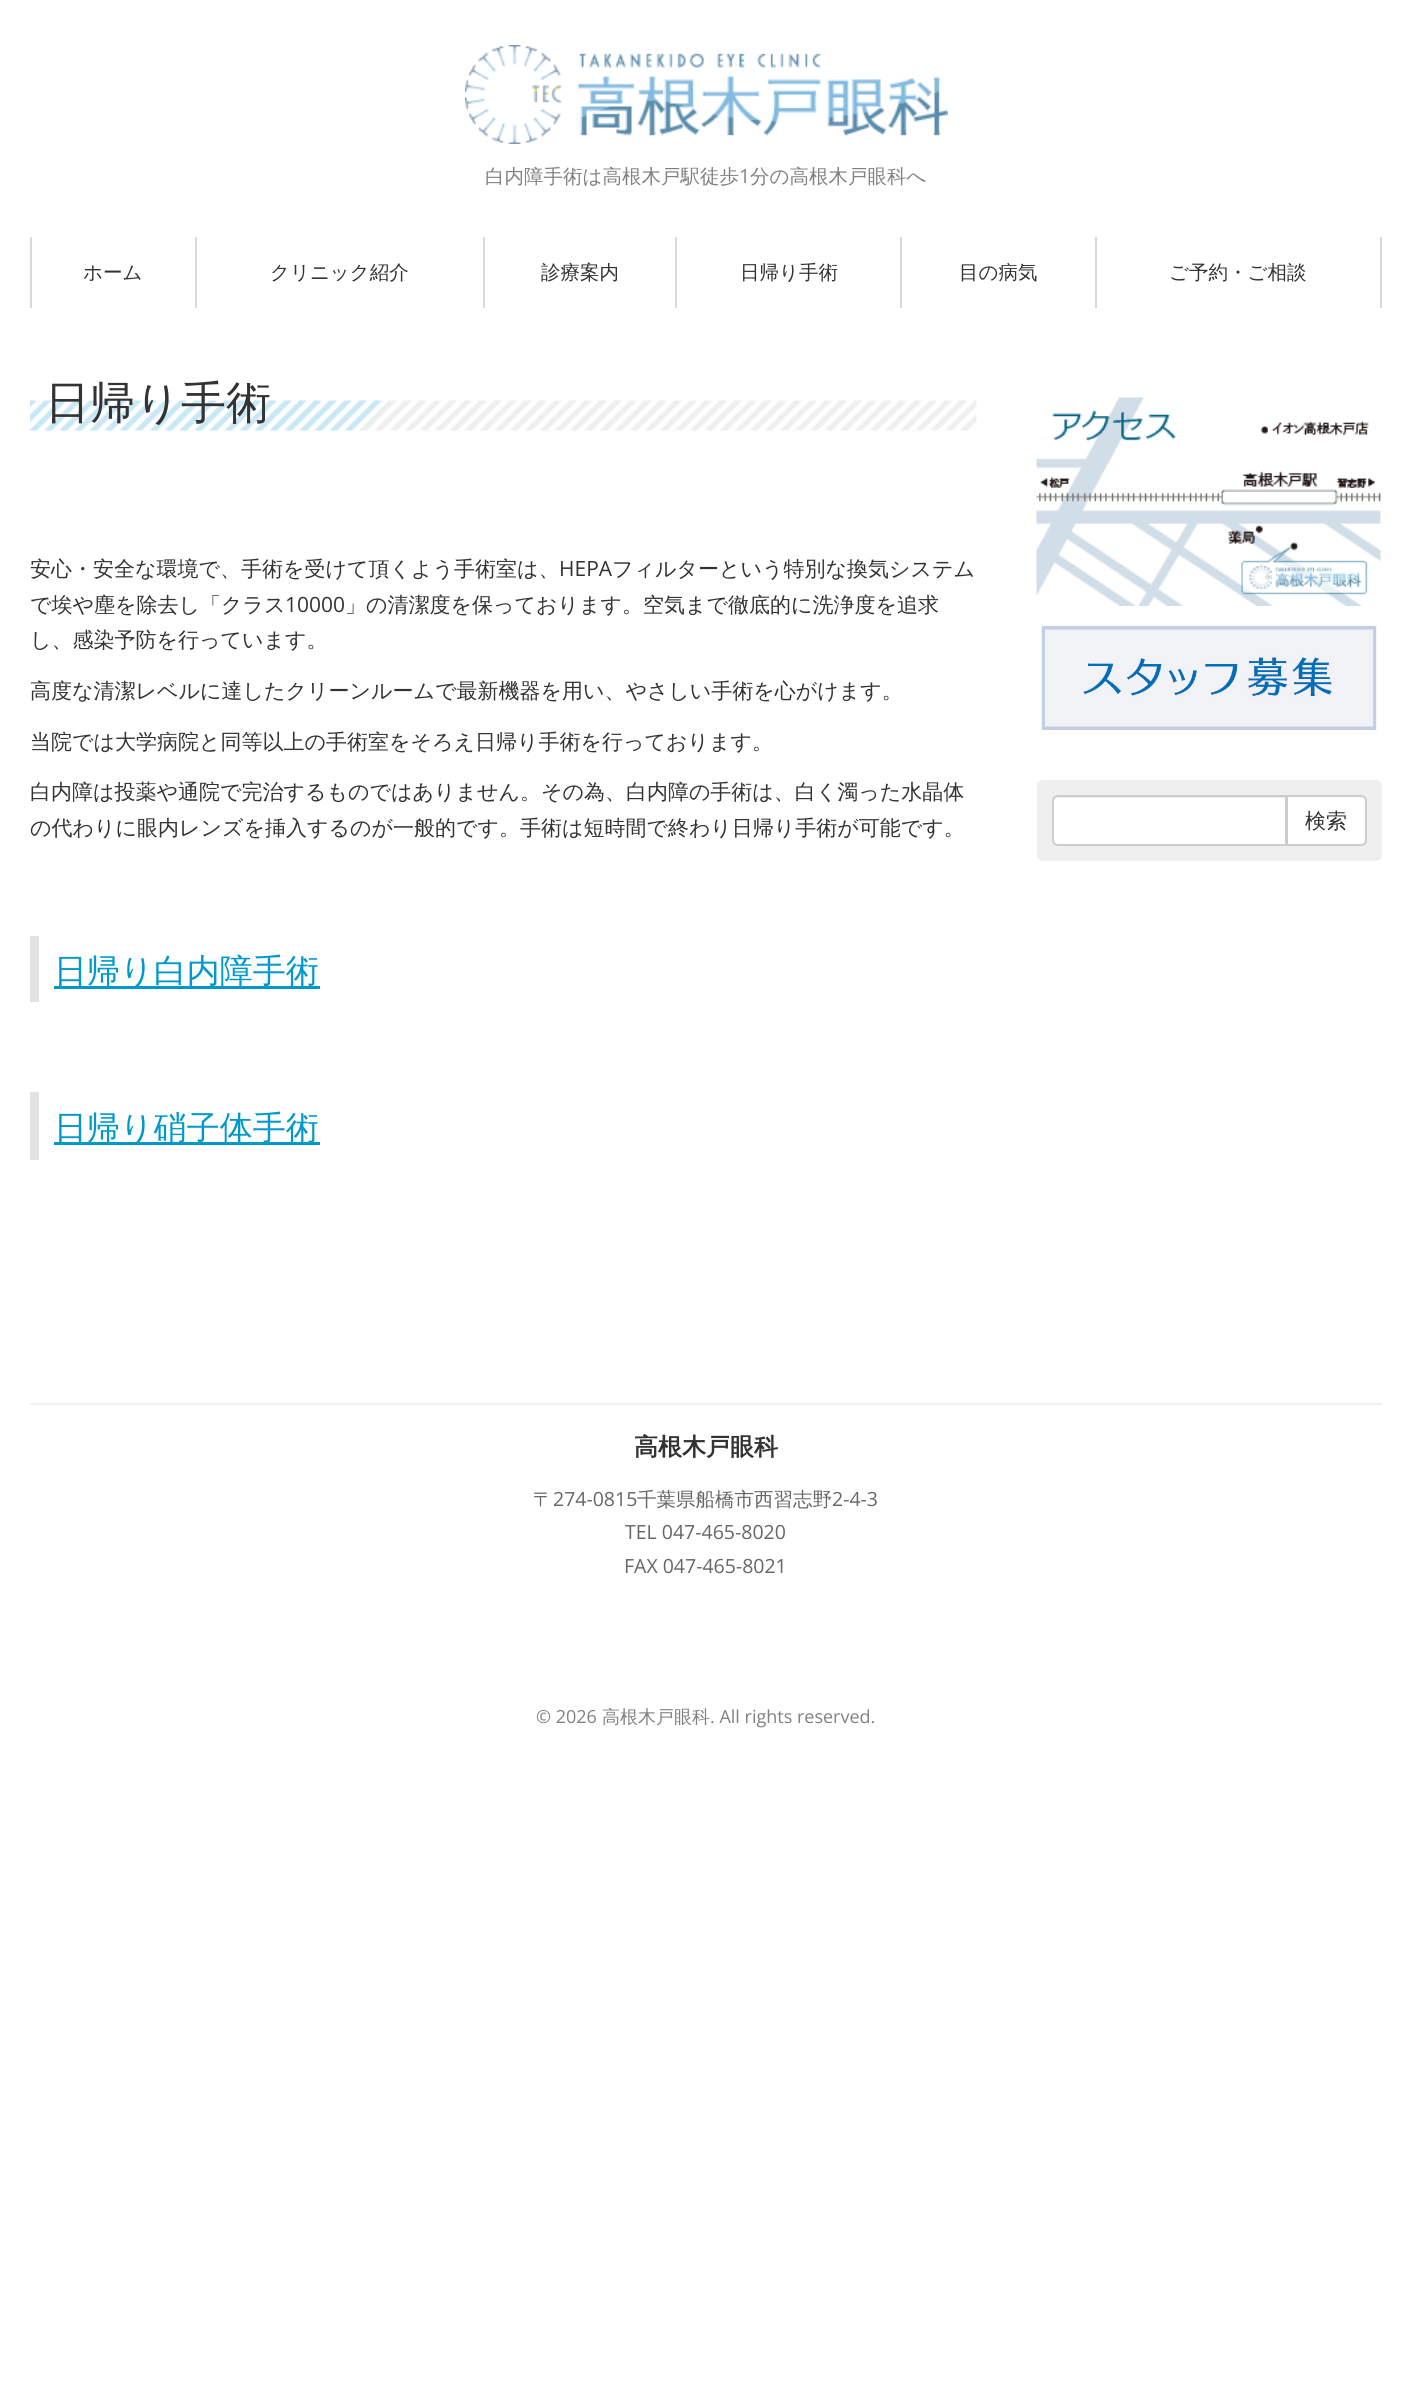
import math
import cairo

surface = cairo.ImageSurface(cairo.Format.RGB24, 1411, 2385)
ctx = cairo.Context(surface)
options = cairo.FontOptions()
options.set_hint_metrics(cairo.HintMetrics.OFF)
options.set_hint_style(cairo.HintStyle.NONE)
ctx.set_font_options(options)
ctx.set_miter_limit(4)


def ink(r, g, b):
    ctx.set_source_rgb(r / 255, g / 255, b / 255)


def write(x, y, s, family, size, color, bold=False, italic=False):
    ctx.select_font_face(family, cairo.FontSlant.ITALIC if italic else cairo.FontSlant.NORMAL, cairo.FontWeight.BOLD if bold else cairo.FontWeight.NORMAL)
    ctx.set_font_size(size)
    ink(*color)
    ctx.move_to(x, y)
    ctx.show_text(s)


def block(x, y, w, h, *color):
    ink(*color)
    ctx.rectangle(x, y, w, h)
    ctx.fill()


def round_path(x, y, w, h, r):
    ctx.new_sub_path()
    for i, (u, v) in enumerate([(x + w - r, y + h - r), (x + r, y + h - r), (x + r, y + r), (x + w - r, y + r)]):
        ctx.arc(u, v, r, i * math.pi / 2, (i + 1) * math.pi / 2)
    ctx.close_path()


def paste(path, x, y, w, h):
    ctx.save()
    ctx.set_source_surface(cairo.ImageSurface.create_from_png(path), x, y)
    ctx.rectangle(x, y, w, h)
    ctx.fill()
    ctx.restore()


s1 = dict(family="WenQuanYi Zen Hei Medium", size=19.5, color=(129, 129, 129))
s2 = dict(family="Open Sans", size=19.5, color=(129, 129, 129))
s3 = dict(family="WenQuanYi Zen Hei Medium", size=19.5, color=(51, 51, 51))
s4 = dict(family="WenQuanYi Zen Hei Medium", size=45, color=(51, 51, 51))
s5 = dict(family="WenQuanYi Zen Hei Medium", size=21, color=(51, 51, 51))
s6 = dict(family="Open Sans", size=21, color=(51, 51, 51))
s7 = dict(family="WenQuanYi Zen Hei Medium", size=33, color=(0, 153, 204))
s8 = dict(family="WenQuanYi Zen Hei", size=24, color=(51, 51, 51), bold=True)
s9 = dict(family="WenQuanYi Zen Hei Medium", size=19.5, color=(102, 102, 102))
s10 = dict(family="Open Sans", size=19.5, color=(102, 102, 102))
s11 = dict(family="Open Sans", size=18, color=(129, 129, 129))
s12 = dict(family="WenQuanYi Zen Hei Medium", size=18, color=(129, 129, 129))

ink(255, 255, 255)
ctx.paint()
paste("pic1.png", 465, 45, 483, 99)
write(485, 183, "白内障手術は高根木戸駅徒歩", **s1)
write(739, 183, "1", **s2)
write(750, 183, "分の高根木戸眼科へ", **s1)
block(30, 237, 2, 71, 217, 217, 217)
block(195, 237, 2, 71, 217, 217, 217)
write(83, 279, "ホーム", **s3)
block(483, 237, 2, 71, 217, 217, 217)
write(270, 279, "クリニック紹介", **s3)
block(675, 237, 2, 71, 217, 217, 217)
write(541, 279, "診療案内", **s3)
block(900, 237, 2, 71, 217, 217, 217)
write(740, 279, "日帰り手術", **s3)
block(1095, 237, 2, 71, 217, 217, 217)
write(959, 279, "目の病気", **s3)
block(1380, 237, 2, 71, 217, 217, 217)
write(1169, 279, "ご予約・ご相談", **s3)
paste("pic2.png", 30, 400, 947, 31)
write(45, 418, "日帰り手術", **s4)
write(30, 576, "安心・安全な環境で、手術を受けて頂くよう手術室は、", **s5)
write(559, 576, "HEPA", **s6)
write(612, 576, "フィルターという特別な換気システム", **s5)
write(30, 612, "で埃や塵を除去し「クラス", **s5)
write(285, 612, "10000", **s6)
write(345, 612, "」の清潔度を保っております。空気まで徹底的に洗浄度を追求", **s5)
write(30, 647, "し、感染予防を行っています。", **s5)
write(30, 698, "高度な清潔レベルに達したクリーンルームで最新機器を用い、やさしい手術を心がけます。", **s5)
write(30, 749, "当院では大学病院と同等以上の手術室をそろえ日帰り手術を行っております。", **s5)
write(30, 799, "白内障は投薬や通院で完治するものではありません。その為、白内障の手術は、白く濁った水晶体", **s5)
write(30, 835, "の代わりに眼内レンズを挿入するのが一般的です。手術は短時間で終わり日帰り手術が可能です。", **s5)
block(30, 936, 9, 66, 226, 226, 226)
block(54, 986, 266, 3, 0, 153, 204)
write(54, 982, "日帰り白内障手術", **s7)
block(30, 1092, 9, 68, 226, 226, 226)
block(54, 1142, 266, 3, 0, 153, 204)
write(54, 1139, "日帰り硝子体手術", **s7)
paste("pic3.png", 1036, 397, 346, 209)
paste("pic4.png", 1041, 626, 336, 104)
ink(239, 239, 239)
round_path(1037, 780, 345, 81, 6)
ctx.fill()
ink(255, 255, 255)
ctx.new_path()
ctx.move_to(1287, 796)
ctx.line_to(1361, 796)
ctx.curve_to(1364, 796, 1366, 798, 1366, 801)
ctx.line_to(1366, 840)
ctx.curve_to(1366, 843, 1364, 845, 1361, 845)
ctx.line_to(1287, 845)
ctx.close_path()
ctx.fill_preserve()
ink(204, 204, 204)
ctx.stroke()
ink(255, 255, 255)
ctx.new_path()
ctx.move_to(1058, 795)
ctx.line_to(1287, 795)
ctx.line_to(1287, 846)
ctx.line_to(1058, 846)
ctx.curve_to(1054.5, 846, 1052, 843.5, 1052, 840)
ctx.line_to(1052, 801)
ctx.curve_to(1052, 797.5, 1054.5, 795, 1058, 795)
ctx.close_path()
ctx.fill()
ink(236, 236, 236)
ctx.new_path()
ctx.move_to(1058, 798)
ctx.line_to(1286, 798)
ctx.line_to(1286, 797)
ctx.line_to(1058, 797)
ctx.curve_to(1055, 797, 1053, 799, 1053, 802)
ctx.curve_to(1053, 800, 1055, 798, 1058, 798)
ctx.close_path()
ctx.fill()
ctx.new_path()
ctx.move_to(1058, 796)
ctx.line_to(1286, 796)
ctx.line_to(1286, 845)
ctx.line_to(1058, 845)
ctx.curve_to(1055, 845, 1053, 843, 1053, 840)
ctx.line_to(1053, 801)
ctx.curve_to(1053, 798, 1055, 796, 1058, 796)
ctx.close_path()
ink(204, 204, 204)
ctx.stroke()
write(1305, 828, "検索", **s5)
block(30, 1403, 1352, 2, 241, 241, 241)
write(634, 1455, "高根木戸眼科", **s8)
write(533, 1506, "〒", **s9)
write(553, 1506, "274-0815", **s10)
write(637, 1506, "千葉県船橋市西習志野", **s9)
write(832, 1506, "2-4-3", **s10)
write(625, 1539, "TEL 047-465-8020", **s10)
write(624, 1573, "FAX 047-465-8021", **s10)
write(536, 1723, "© 2026", **s11)
write(602, 1723, "高根木戸眼科", **s12)
write(710, 1723, ". All rights reserved.", **s11)
surface.write_to_png("screenshot.png")
